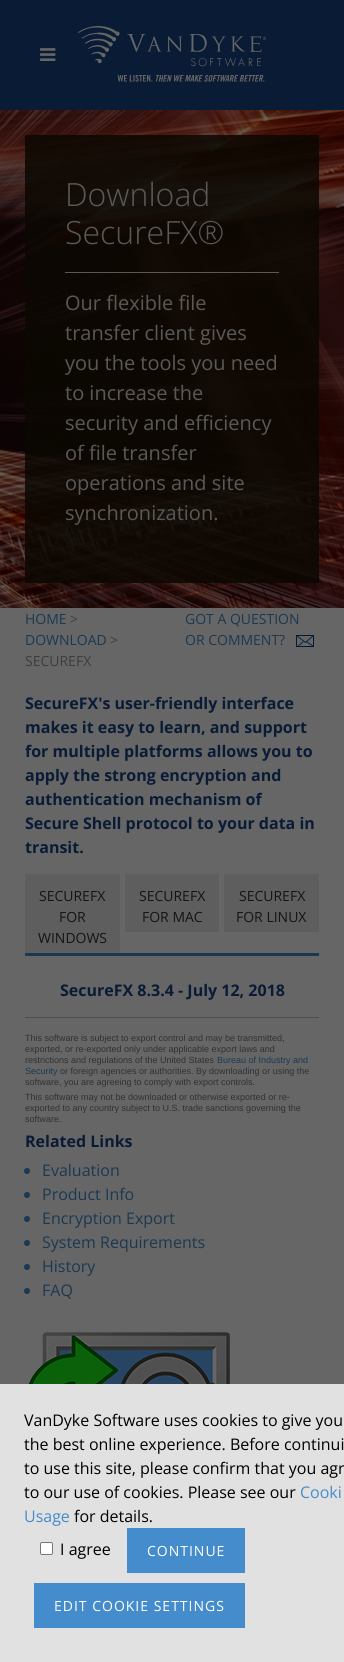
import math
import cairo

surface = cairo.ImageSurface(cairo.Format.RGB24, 344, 1662)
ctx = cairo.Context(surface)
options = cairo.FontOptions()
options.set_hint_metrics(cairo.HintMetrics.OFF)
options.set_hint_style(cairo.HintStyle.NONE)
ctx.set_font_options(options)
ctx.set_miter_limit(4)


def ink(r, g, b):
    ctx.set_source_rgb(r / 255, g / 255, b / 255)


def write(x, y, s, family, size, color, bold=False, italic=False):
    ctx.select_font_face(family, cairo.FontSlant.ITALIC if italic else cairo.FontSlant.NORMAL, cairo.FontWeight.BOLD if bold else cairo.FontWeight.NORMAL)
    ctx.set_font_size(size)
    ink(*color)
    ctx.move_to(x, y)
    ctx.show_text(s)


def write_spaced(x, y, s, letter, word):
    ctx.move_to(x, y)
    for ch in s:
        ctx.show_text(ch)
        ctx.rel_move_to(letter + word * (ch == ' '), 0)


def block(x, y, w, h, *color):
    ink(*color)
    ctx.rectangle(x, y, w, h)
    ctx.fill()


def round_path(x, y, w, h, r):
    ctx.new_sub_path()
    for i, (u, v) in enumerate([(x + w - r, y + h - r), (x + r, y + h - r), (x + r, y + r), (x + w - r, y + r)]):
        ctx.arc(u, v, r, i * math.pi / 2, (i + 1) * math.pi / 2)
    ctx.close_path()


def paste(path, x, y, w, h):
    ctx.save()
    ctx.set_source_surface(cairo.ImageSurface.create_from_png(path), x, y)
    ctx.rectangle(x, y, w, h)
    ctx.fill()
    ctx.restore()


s1 = dict(family="Open Sans Light", size=32, color=(90, 89, 88))
s2 = dict(family="Open Sans", size=20, color=(90, 89, 88))
s3 = dict(family="Open Sans", size=14, color=(27, 56, 81))
s4 = dict(family="Open Sans", size=14, color=(61, 61, 61))
s5 = dict(family="Open Sans", size=16, color=(10, 27, 53), bold=True)
s6 = dict(family="Open Sans", size=14, color=(20, 20, 20))
s7 = dict(family="Liberation Sans", size=9, color=(48, 48, 48))
s8 = dict(family="Liberation Sans", size=9, color=(27, 56, 81))
s9 = dict(family="Open Sans", size=16, color=(27, 56, 81))
s10 = dict(family="Open Sans", size=16, color=(0, 0, 0))
s11 = dict(family="Open Sans", size=16, color=(68, 140, 203))

ink(10, 27, 53)
ctx.paint()
paste("pic1.png", 40, 48, 16, 13)
paste("pic2.png", 78, 26, 188, 56)
paste("pic3.png", 0, 110, 344, 498)
ctx.set_source_rgba(0.043, 0.031, 0.008, 0.85)
ctx.rectangle(25, 135, 294, 448)
ctx.fill()
ctx.set_source_rgba(0.4, 0.4, 0.4, 0.85)
ctx.rectangle(65, 272, 214, 1)
ctx.fill()
write(65, 206, "Download", **s1)
write(65, 244, "SecureFX®", **s1)
write(65, 310, "Our flexible file", **s2)
write(65, 340, "transfer client gives", **s2)
write(65, 370, "you the tools you need", **s2)
write(65, 400, "to increase the", **s2)
write(65, 430, "security and efficiency", **s2)
write(65, 460, "of file transfer", **s2)
write(65, 490, "operations and site", **s2)
write(65, 520, "synchronization.", **s2)
block(0, 608, 344, 776, 102, 102, 102)
write(25, 624, "HOME", **s3)
write(70, 624, ">", **s4)
write(25, 645, "DOWNLOAD", **s3)
write(110, 645, ">", **s4)
write(25, 666, "SECUREFX", **s4)
write(185, 624, "GOT A QUESTION", **s3)
write(185, 645, "OR COMMENT?", **s3)
paste("pic4.png", 296, 635, 18, 12)
write(25, 709, "SecureFX's user-friendly interface", **s5)
write(25, 733, "makes it easy to learn, and support", **s5)
write(25, 757, "for multiple platforms allows you to", **s5)
write(25, 781, "apply the strong encryption and", **s5)
write(25, 805, "authentication mechanism of", **s5)
write(25, 829, "Secure Shell protocol to your data in", **s5)
write(25, 853, "transit.", **s5)
block(25, 874, 95, 79, 94, 94, 94)
write(39, 901, "SECUREFX", **s6)
write(59, 922, "FOR", **s6)
write(38, 943, "WINDOWS", **s6)
block(125, 874, 94, 58, 94, 94, 94)
write(139, 901, "SECUREFX", **s6)
write(142, 922, "FOR MAC", **s6)
block(224, 874, 95, 58, 94, 94, 94)
write(239, 901, "SECUREFX", **s6)
write(236, 922, "FOR LINUX", **s6)
block(25, 953, 294, 3, 27, 56, 81)
write(60, 996, "SecureFX 8.3.4 - July 12, 2018", **s5)
block(25, 1017, 294, 1, 76, 76, 76)
write(25, 1041, "This software is subject to export control and may be transmitted,", **s7)
write(25, 1052, "exported, or re-exported only under applicable export laws and", **s7)
write(25, 1063, "restrictions and regulations of the United States", **s7)
write(217, 1063, "Bureau of Industry and", **s8)
write(25, 1074, "Security", **s8)
write(60, 1074, "or foreign agencies or authorities. By downloading or using the", **s7)
write(25, 1085, "software, you are agreeing to comply with export controls.", **s7)
write(25, 1100, "This software may not be downloaded or otherwise exported or re-", **s7)
write(25, 1111, "exported to any country subject to U.S. trade sanctions governing the", **s7)
write(25, 1122, "software.", **s7)
write(25, 1147, "Related Links", **s5)
ink(27, 56, 81)
ctx.new_path()
ctx.arc(27, 1171, 3, 0, 2 * math.pi)
ctx.fill()
write(42, 1176, "Evaluation", **s9)
ctx.new_path()
ctx.arc(27, 1195, 3, 0, 2 * math.pi)
ctx.fill()
write(42, 1200, "Product Info", **s9)
ctx.new_path()
ctx.arc(27, 1219, 3, 0, 2 * math.pi)
ctx.fill()
write(42, 1224, "Encryption Export", **s9)
ctx.new_path()
ctx.arc(27, 1243, 3, 0, 2 * math.pi)
ctx.fill()
write(42, 1248, "System Requirements", **s9)
ctx.new_path()
ctx.arc(27, 1267, 3, 0, 2 * math.pi)
ctx.fill()
write(42, 1272, "History", **s9)
ctx.new_path()
ctx.arc(27, 1291, 3, 0, 2 * math.pi)
ctx.fill()
write(42, 1296, "FAQ", **s9)
paste("pic5.png", 28, 1332, 202, 52)
block(0, 1384, 344, 278, 225, 225, 225)
write(24, 1426, "VanDyke Software uses cookies to give you", **s10)
write(24, 1450, "the best online experience. Before continui", **s10)
write(24, 1474, "to use this site, please confirm that you agr", **s10)
write(24, 1498, "to our use of cookies. Please see our", **s10)
write(300, 1498, "Cooki", **s11)
write(24, 1522, "Usage", **s11)
write(74, 1522, "for details.", **s10)
ink(255, 255, 255)
round_path(40.5, 1542.5, 12, 12, 1.5)
ctx.fill_preserve()
ink(118, 118, 118)
ctx.set_line_width(1)
ctx.stroke()
write(60, 1555, "I agree", **s10)
block(127, 1528, 118, 45, 68, 140, 203)
ctx.set_font_size(14)
ink(255, 255, 255)
write_spaced(147, 1556, "CONTINUE", 1, 0)
block(34, 1583, 211, 45, 68, 140, 203)
ink(255, 255, 255)
write_spaced(54, 1611, "EDIT COOKIE SETTINGS", 1, 0)
surface.write_to_png("screenshot.png")
